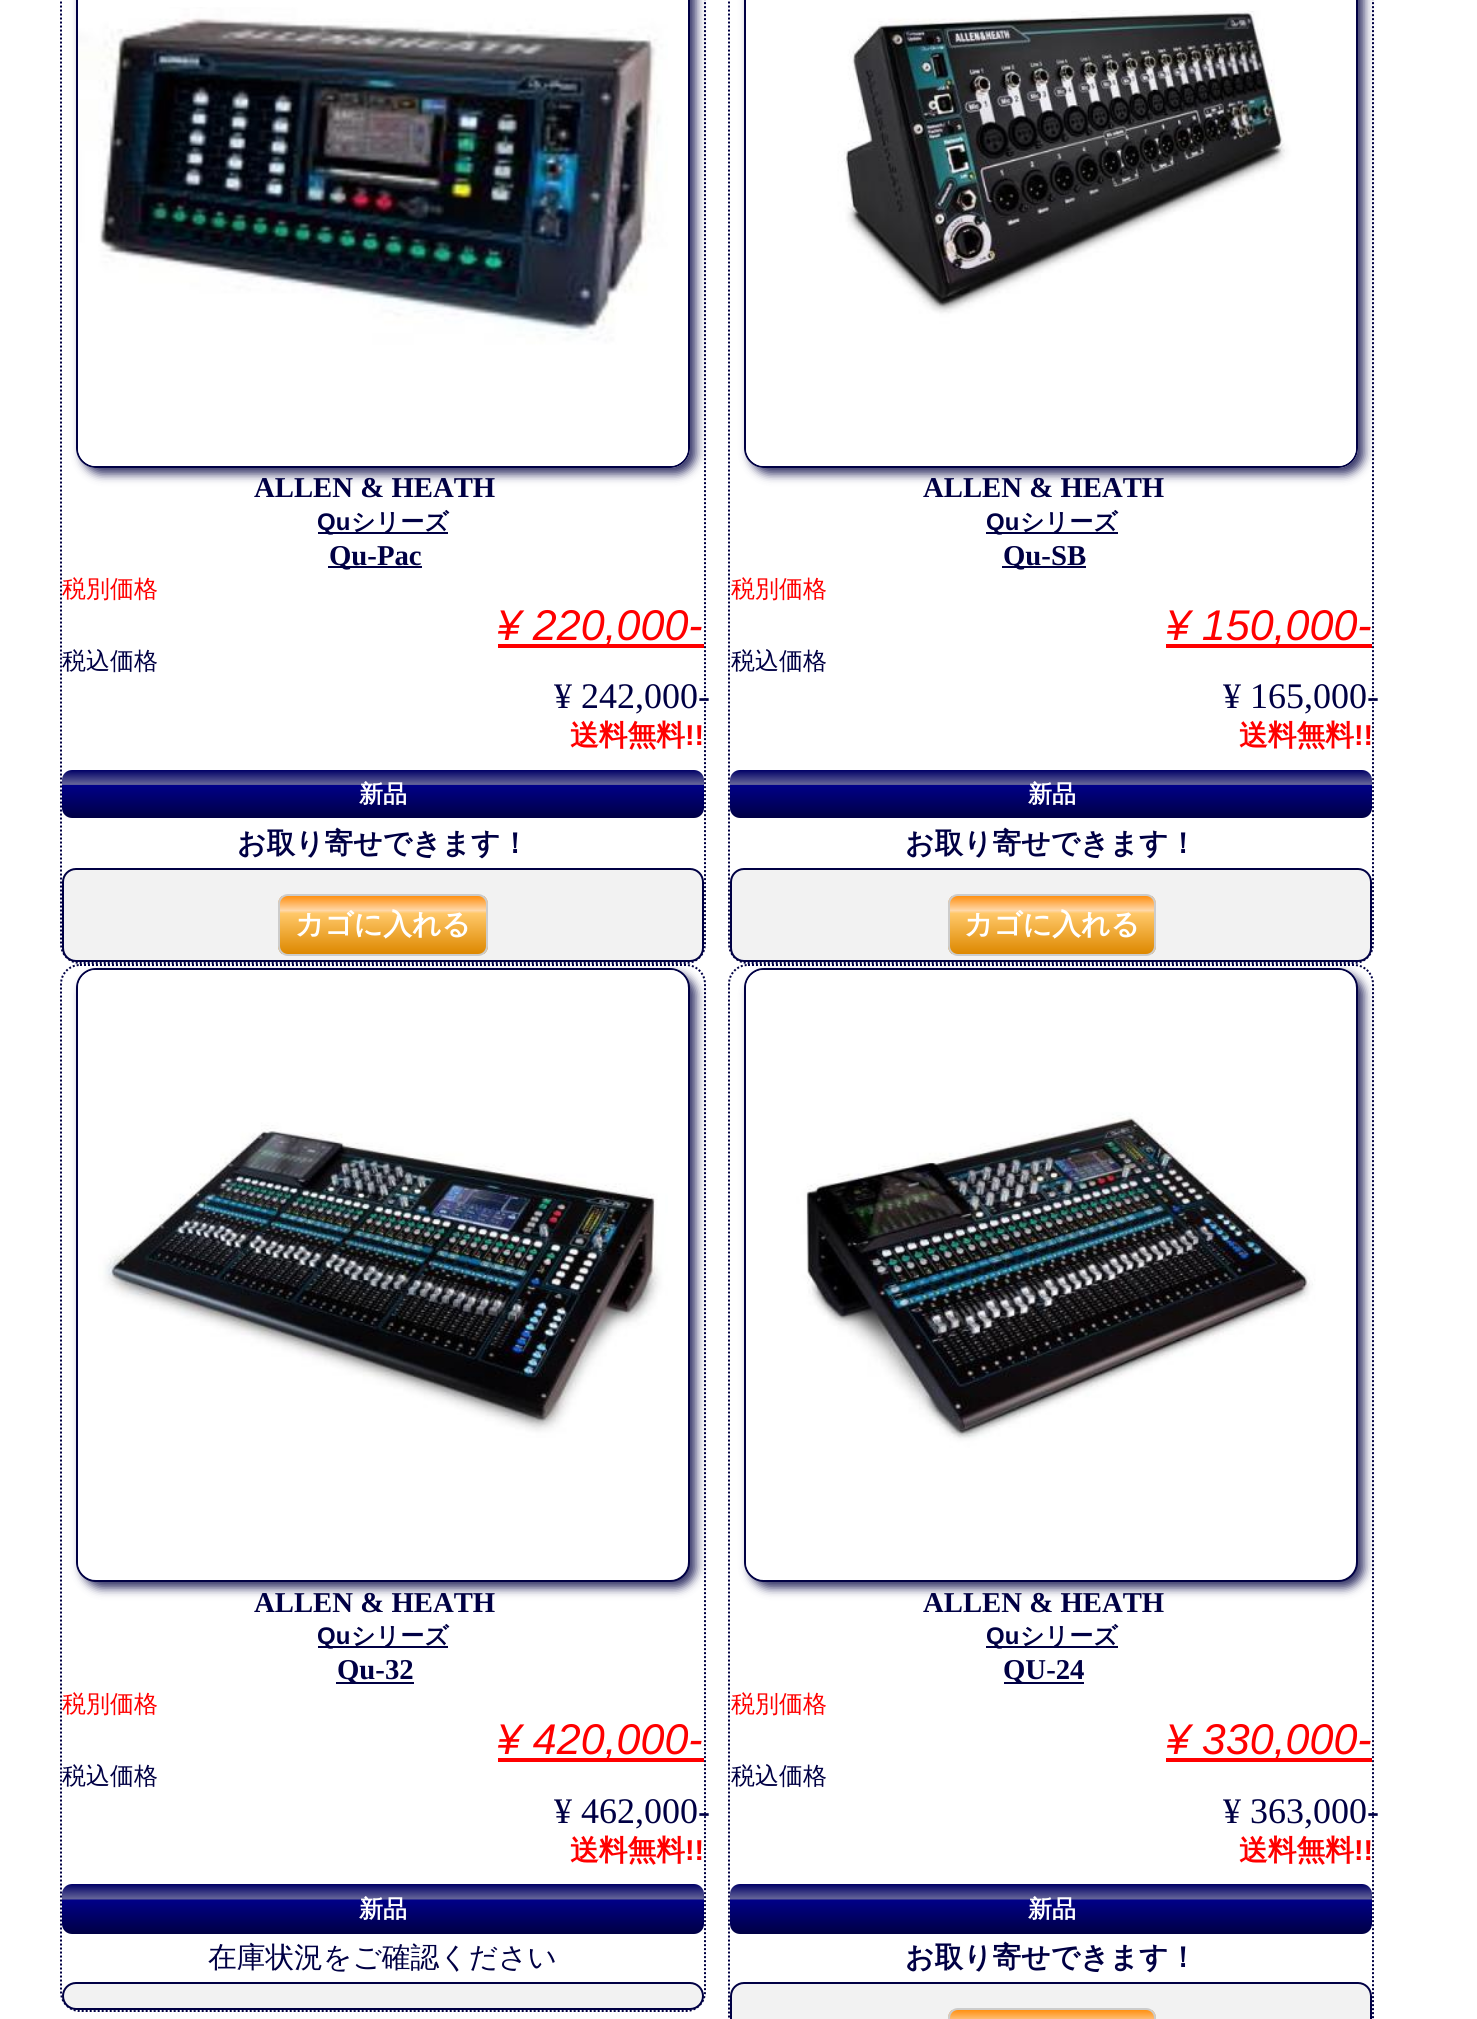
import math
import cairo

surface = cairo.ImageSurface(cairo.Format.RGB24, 1477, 2019)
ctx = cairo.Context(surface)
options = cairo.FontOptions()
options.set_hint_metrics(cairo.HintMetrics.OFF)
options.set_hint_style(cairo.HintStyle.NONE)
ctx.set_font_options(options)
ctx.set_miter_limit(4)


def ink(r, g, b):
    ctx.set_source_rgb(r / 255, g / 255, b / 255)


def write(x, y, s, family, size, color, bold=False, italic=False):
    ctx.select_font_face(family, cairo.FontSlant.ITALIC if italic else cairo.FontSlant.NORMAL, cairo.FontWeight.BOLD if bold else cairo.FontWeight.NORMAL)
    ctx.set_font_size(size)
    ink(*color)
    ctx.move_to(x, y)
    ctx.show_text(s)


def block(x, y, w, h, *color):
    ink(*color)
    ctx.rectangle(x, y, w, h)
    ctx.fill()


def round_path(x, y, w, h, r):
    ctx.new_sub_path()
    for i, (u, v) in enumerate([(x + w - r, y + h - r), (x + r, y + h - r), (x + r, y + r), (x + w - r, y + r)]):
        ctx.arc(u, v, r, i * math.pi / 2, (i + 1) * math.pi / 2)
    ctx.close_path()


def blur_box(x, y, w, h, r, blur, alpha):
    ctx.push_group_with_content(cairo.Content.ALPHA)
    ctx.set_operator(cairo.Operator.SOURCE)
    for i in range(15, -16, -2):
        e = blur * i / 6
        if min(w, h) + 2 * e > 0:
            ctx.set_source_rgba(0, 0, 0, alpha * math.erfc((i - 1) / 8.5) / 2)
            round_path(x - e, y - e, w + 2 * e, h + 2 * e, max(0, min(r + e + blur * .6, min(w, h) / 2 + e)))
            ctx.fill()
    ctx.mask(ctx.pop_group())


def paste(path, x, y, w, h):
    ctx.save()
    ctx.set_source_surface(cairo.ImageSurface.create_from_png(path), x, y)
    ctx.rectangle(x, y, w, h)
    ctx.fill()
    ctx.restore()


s1 = dict(family="Liberation Serif", size=28.75, color=(0, 0, 68), bold=True)
s2 = dict(family="Liberation Sans", size=24, color=(0, 0, 68), bold=True)
s3 = dict(family="WenQuanYi Zen Hei", size=24, color=(0, 0, 68), bold=True)
s4 = dict(family="WenQuanYi Zen Hei Medium", size=24, color=(255, 0, 0))
s5 = dict(family="Liberation Sans", size=43, color=(255, 0, 0), italic=True)
s6 = dict(family="WenQuanYi Zen Hei Medium", size=24, color=(0, 0, 68))
s7 = dict(family="Liberation Serif", size=36, color=(0, 0, 68))
s8 = dict(family="WenQuanYi Zen Hei", size=28.75, color=(255, 0, 0), bold=True)
s9 = dict(family="Liberation Sans", size=28.75, color=(255, 0, 0), bold=True)
s10 = dict(family="WenQuanYi Zen Hei", size=24, color=(255, 255, 255), bold=True)
s11 = dict(family="WenQuanYi Zen Hei", size=28.75, color=(0, 0, 68), bold=True)
s12 = dict(family="WenQuanYi Zen Hei", size=28.75, color=(255, 255, 255), bold=True)
s13 = dict(family="WenQuanYi Zen Hei Medium", size=28.75, color=(0, 0, 68))

ink(255, 255, 255)
ctx.paint()
ctx.new_path()
ctx.move_to(80, -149)
ctx.line_to(686, -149)
ctx.curve_to(696.5, -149, 705, -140.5, 705, -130)
ctx.line_to(705, 944)
ctx.curve_to(705, 954.5, 696.5, 963, 686, 963)
ctx.line_to(80, 963)
ctx.curve_to(69.5, 963, 61, 954.5, 61, 944)
ctx.line_to(61, -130)
ctx.curve_to(61, -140.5, 69.5, -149, 80, -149)
ctx.close_path()
ink(0, 0, 68)
ctx.set_dash([2, 2])
ctx.stroke()
ctx.save()
ctx.set_fill_rule(cairo.FillRule.EVEN_ODD)
ctx.new_path()
ctx.move_to(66, 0)
ctx.line_to(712, 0)
ctx.line_to(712, 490)
ctx.line_to(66, 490)
ctx.close_path()
ctx.move_to(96, -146)
ctx.line_to(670, -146)
ctx.curve_to(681, -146, 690, -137, 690, -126)
ctx.line_to(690, 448)
ctx.curve_to(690, 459, 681, 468, 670, 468)
ctx.line_to(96, 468)
ctx.curve_to(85, 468, 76, 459, 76, 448)
ctx.line_to(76, -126)
ctx.curve_to(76, -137, 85, -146, 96, -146)
ctx.close_path()
ctx.clip()
ink(0, 0, 64)
blur_box(82, -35, 614, 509, 20, 5, 0.8)
ctx.restore()
round_path(77, -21, 612, 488, 19)
ctx.set_dash([])
ctx.stroke()
paste("pic1.png", 78, 7, 610, 459)
write(254, 497, "ALLEN & HEATH", **s1)
block(318, 532, 130, 2, 0, 0, 68)
write(317, 530, "Qu", **s2)
write(351, 530, "シリーズ", **s3)
block(328, 566, 94, 2, 0, 0, 68)
write(329, 565, "Qu-Pac", **s1)
write(62, 597, "税別価格", **s4)
block(498, 644, 206, 4, 255, 0, 0)
write(497, 640, "¥ 220,000-", **s5)
write(62, 669, "税込価格", **s6)
write(554, 708, "¥ 242,000-", **s7)
write(570, 745, "送料無料", **s8)
write(685, 745, "!!", **s9)
gradient = cairo.LinearGradient(383, 770, 383, 818)
gradient.add_color_stop_rgba(0, 0, 0, 0.4, 1)
gradient.add_color_stop_rgba(0.3, 0.4, 0.4, 0.6, 1)
gradient.add_color_stop_rgba(0.32, 0, 0, 0.533, 1)
gradient.add_color_stop_rgba(1, 0, 0, 0.267, 1)
ctx.set_source(gradient)
round_path(62, 770, 642, 48, 10)
ctx.fill()
write(359, 802, "新品", **s10)
write(237, 853, "お取り寄せできます！", **s11)
ink(242, 242, 242)
round_path(63, 869, 640, 92, 13)
ctx.fill_preserve()
ink(0, 0, 68)
ctx.stroke()
ctx.save()
round_path(278, 894, 210, 62, 10)
ctx.clip()
gradient = cairo.LinearGradient(383, 896, 383, 954)
gradient.add_color_stop_rgba(0, 1, 0.565, 0.067, 1)
gradient.add_color_stop_rgba(0.25, 1, 0.847, 0.663, 1)
gradient.add_color_stop_rgba(0.3, 1, 0.784, 0.412, 1)
gradient.add_color_stop_rgba(1, 0.867, 0.533, 0, 1)
ctx.set_source(gradient)
ctx.rectangle(278, 896, 210, 58)
ctx.fill()
ctx.restore()
round_path(279, 895, 208, 60, 9)
ink(204, 204, 204)
ctx.stroke()
write(295, 934, "カゴに入れる", **s12)
ctx.new_path()
ctx.move_to(748, -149)
ctx.line_to(1354, -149)
ctx.curve_to(1364.5, -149, 1373, -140.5, 1373, -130)
ctx.line_to(1373, 944)
ctx.curve_to(1373, 954.5, 1364.5, 963, 1354, 963)
ctx.line_to(748, 963)
ctx.curve_to(737.5, 963, 729, 954.5, 729, 944)
ctx.line_to(729, -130)
ctx.curve_to(729, -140.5, 737.5, -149, 748, -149)
ctx.close_path()
ink(0, 0, 68)
ctx.set_dash([2, 2])
ctx.stroke()
ctx.save()
ctx.set_fill_rule(cairo.FillRule.EVEN_ODD)
ctx.new_path()
ctx.move_to(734, 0)
ctx.line_to(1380, 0)
ctx.line_to(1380, 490)
ctx.line_to(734, 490)
ctx.close_path()
ctx.move_to(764, -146)
ctx.line_to(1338, -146)
ctx.curve_to(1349, -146, 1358, -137, 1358, -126)
ctx.line_to(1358, 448)
ctx.curve_to(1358, 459, 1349, 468, 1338, 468)
ctx.line_to(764, 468)
ctx.curve_to(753, 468, 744, 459, 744, 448)
ctx.line_to(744, -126)
ctx.curve_to(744, -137, 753, -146, 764, -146)
ctx.close_path()
ctx.clip()
ink(0, 0, 64)
blur_box(750, -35, 614, 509, 20, 5, 0.8)
ctx.restore()
round_path(745, -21, 612, 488, 19)
ctx.set_dash([])
ctx.stroke()
paste("pic2.png", 746, 10, 610, 456)
write(923, 497, "ALLEN & HEATH", **s1)
block(986, 532, 132, 2, 0, 0, 68)
write(986, 530, "Qu", **s2)
write(1020, 530, "シリーズ", **s3)
block(1002, 566, 84, 2, 0, 0, 68)
write(1003, 565, "Qu-SB", **s1)
write(731, 597, "税別価格", **s4)
block(1166, 644, 206, 4, 255, 0, 0)
write(1166, 640, "¥ 150,000-", **s5)
write(731, 669, "税込価格", **s6)
write(1223, 708, "¥ 165,000-", **s7)
write(1239, 745, "送料無料", **s8)
write(1354, 745, "!!", **s9)
gradient = cairo.LinearGradient(1051, 770, 1051, 818)
gradient.add_color_stop_rgba(0, 0, 0, 0.4, 1)
gradient.add_color_stop_rgba(0.3, 0.4, 0.4, 0.6, 1)
gradient.add_color_stop_rgba(0.32, 0, 0, 0.533, 1)
gradient.add_color_stop_rgba(1, 0, 0, 0.267, 1)
ctx.set_source(gradient)
round_path(730, 770, 642, 48, 10)
ctx.fill()
write(1028, 802, "新品", **s10)
write(905, 853, "お取り寄せできます！", **s11)
ink(242, 242, 242)
round_path(731, 869, 640, 92, 13)
ctx.fill_preserve()
ink(0, 0, 68)
ctx.stroke()
ctx.save()
round_path(948, 894, 208, 62, 10)
ctx.clip()
gradient = cairo.LinearGradient(1052, 896, 1052, 954)
gradient.add_color_stop_rgba(0, 1, 0.565, 0.067, 1)
gradient.add_color_stop_rgba(0.25, 1, 0.847, 0.663, 1)
gradient.add_color_stop_rgba(0.3, 1, 0.784, 0.412, 1)
gradient.add_color_stop_rgba(1, 0.867, 0.533, 0, 1)
ctx.set_source(gradient)
ctx.rectangle(948, 896, 208, 58)
ctx.fill()
ctx.restore()
round_path(949, 895, 206, 60, 9)
ink(204, 204, 204)
ctx.stroke()
write(964, 934, "カゴに入れる", **s12)
ctx.new_path()
ctx.move_to(80, 965)
ctx.line_to(686, 965)
ctx.curve_to(696.5, 965, 705, 973.5, 705, 984)
ctx.line_to(705, 1992)
ctx.curve_to(705, 2002.5, 696.5, 2011, 686, 2011)
ctx.line_to(80, 2011)
ctx.curve_to(69.5, 2011, 61, 2002.5, 61, 1992)
ctx.line_to(61, 984)
ctx.curve_to(61, 973.5, 69.5, 965, 80, 965)
ctx.close_path()
ink(0, 0, 68)
ctx.set_dash([2, 2])
ctx.stroke()
ink(0, 0, 64)
blur_box(82, 974, 614, 614, 20, 5, 0.8)
round_path(77, 969, 612, 612, 19)
ink(0, 0, 68)
ctx.set_dash([])
ctx.stroke()
paste("pic3.png", 78, 970, 610, 610)
write(254, 1612, "ALLEN & HEATH", **s1)
block(318, 1646, 130, 2, 0, 0, 68)
write(317, 1644, "Qu", **s2)
write(351, 1644, "シリーズ", **s3)
block(336, 1682, 78, 2, 0, 0, 68)
write(337, 1679, "Qu-32", **s1)
write(62, 1712, "税別価格", **s4)
block(498, 1758, 206, 4, 255, 0, 0)
write(497, 1754, "¥ 420,000-", **s5)
write(62, 1784, "税込価格", **s6)
write(554, 1823, "¥ 462,000-", **s7)
write(570, 1860, "送料無料", **s8)
write(685, 1860, "!!", **s9)
gradient = cairo.LinearGradient(383, 1884, 383, 1934)
gradient.add_color_stop_rgba(0, 0, 0, 0.4, 1)
gradient.add_color_stop_rgba(0.3, 0.4, 0.4, 0.6, 1)
gradient.add_color_stop_rgba(0.32, 0, 0, 0.533, 1)
gradient.add_color_stop_rgba(1, 0, 0, 0.267, 1)
ctx.set_source(gradient)
round_path(62, 1884, 642, 50, 10)
ctx.fill()
write(359, 1917, "新品", **s10)
write(208, 1967, "在庫状況をご確認ください", **s13)
ink(242, 242, 242)
round_path(63, 1983, 640, 26, 13)
ctx.fill_preserve()
ink(0, 0, 68)
ctx.stroke()
ctx.new_path()
ctx.move_to(748, 965)
ctx.line_to(1354, 965)
ctx.curve_to(1364.5, 965, 1373, 973.5, 1373, 984)
ctx.line_to(1373, 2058)
ctx.curve_to(1373, 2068.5, 1364.5, 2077, 1354, 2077)
ctx.line_to(748, 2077)
ctx.curve_to(737.5, 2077, 729, 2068.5, 729, 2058)
ctx.line_to(729, 984)
ctx.curve_to(729, 973.5, 737.5, 965, 748, 965)
ctx.close_path()
ctx.set_dash([2, 2])
ctx.stroke()
ink(0, 0, 64)
blur_box(750, 974, 614, 614, 20, 5, 0.8)
round_path(745, 969, 612, 612, 19)
ink(0, 0, 68)
ctx.set_dash([])
ctx.stroke()
paste("pic4.png", 746, 970, 610, 610)
write(923, 1612, "ALLEN & HEATH", **s1)
block(986, 1646, 132, 2, 0, 0, 68)
write(986, 1644, "Qu", **s2)
write(1020, 1644, "シリーズ", **s3)
block(1004, 1682, 80, 2, 0, 0, 68)
write(1003, 1679, "QU-24", **s1)
write(731, 1712, "税別価格", **s4)
block(1166, 1758, 206, 4, 255, 0, 0)
write(1166, 1754, "¥ 330,000-", **s5)
write(731, 1784, "税込価格", **s6)
write(1223, 1823, "¥ 363,000-", **s7)
write(1239, 1860, "送料無料", **s8)
write(1354, 1860, "!!", **s9)
gradient = cairo.LinearGradient(1051, 1884, 1051, 1934)
gradient.add_color_stop_rgba(0, 0, 0, 0.4, 1)
gradient.add_color_stop_rgba(0.3, 0.4, 0.4, 0.6, 1)
gradient.add_color_stop_rgba(0.32, 0, 0, 0.533, 1)
gradient.add_color_stop_rgba(1, 0, 0, 0.267, 1)
ctx.set_source(gradient)
round_path(730, 1884, 642, 50, 10)
ctx.fill()
write(1028, 1917, "新品", **s10)
write(905, 1967, "お取り寄せできます！", **s11)
ink(242, 242, 242)
round_path(731, 1983, 640, 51, 13)
ctx.fill_preserve()
ink(0, 0, 68)
ctx.stroke()
ctx.save()
round_path(948, 2008, 208, 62, 10)
ctx.clip()
gradient = cairo.LinearGradient(1052, 2010, 1052, 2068)
gradient.add_color_stop_rgba(0, 1, 0.565, 0.067, 1)
gradient.add_color_stop_rgba(0.25, 1, 0.847, 0.663, 1)
gradient.add_color_stop_rgba(0.3, 1, 0.784, 0.412, 1)
gradient.add_color_stop_rgba(1, 0.867, 0.533, 0, 1)
ctx.set_source(gradient)
ctx.rectangle(948, 2010, 208, 9)
ctx.fill()
ctx.restore()
round_path(949, 2009, 206, 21, 9)
ink(204, 204, 204)
ctx.stroke()
surface.write_to_png("screenshot.png")
